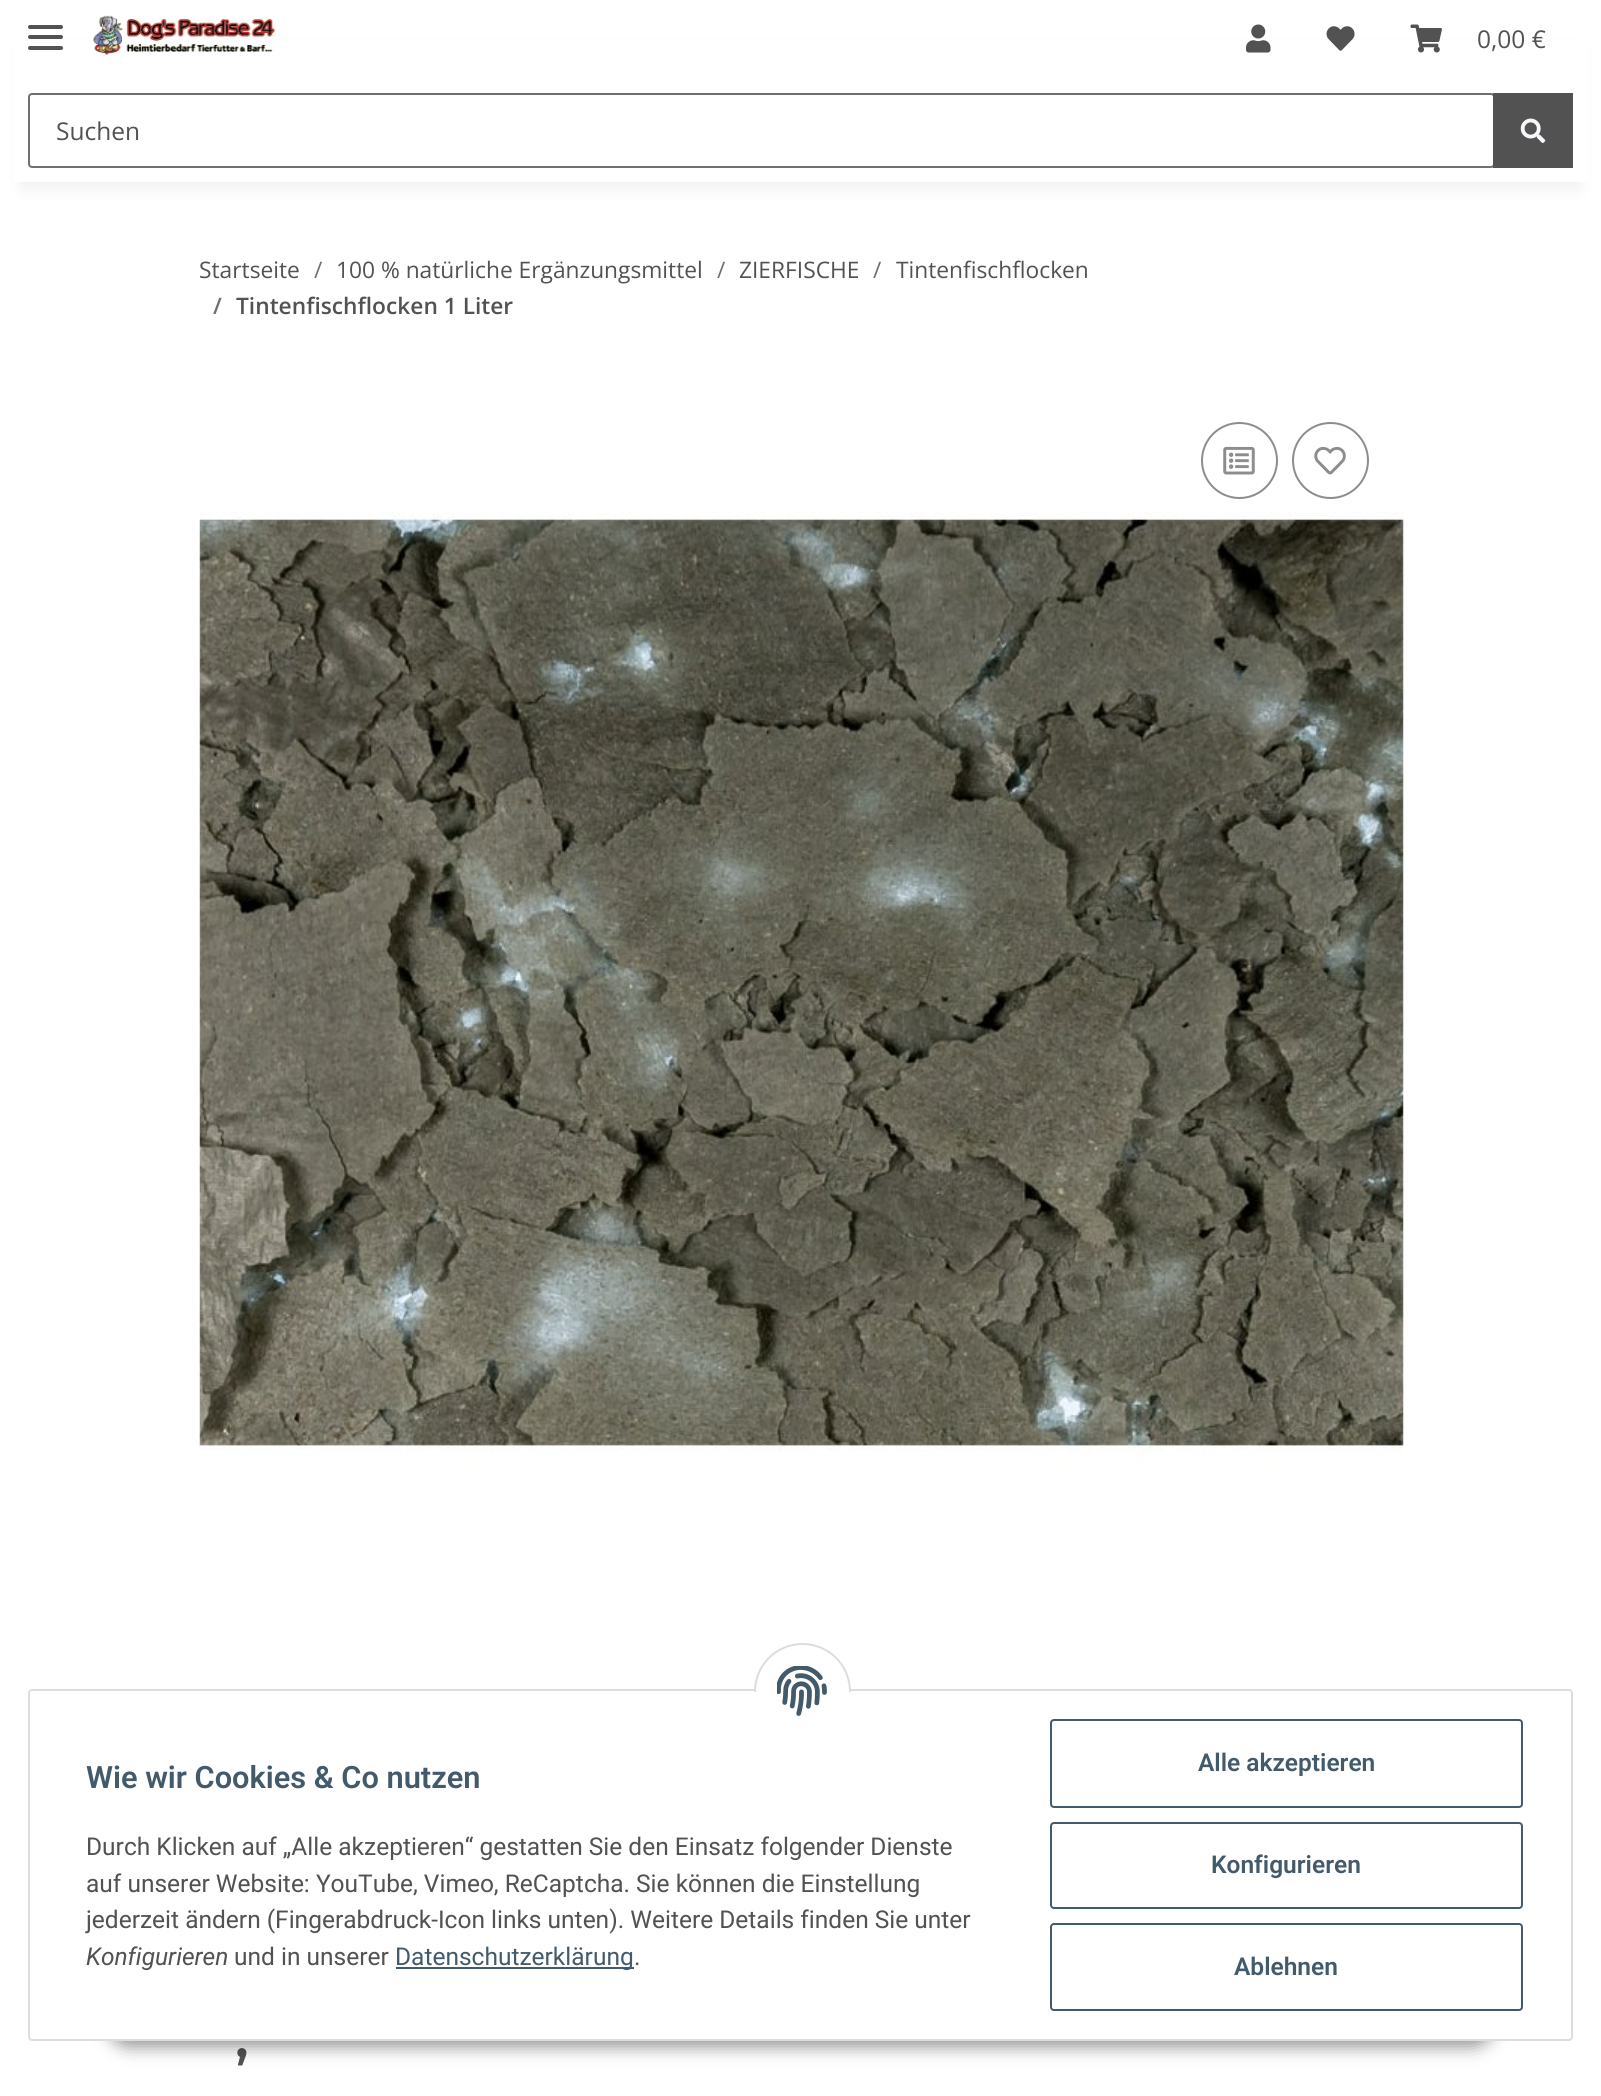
import math
import cairo

surface = cairo.ImageSurface(cairo.Format.RGB24, 1601, 2096)
ctx = cairo.Context(surface)
options = cairo.FontOptions()
options.set_hint_metrics(cairo.HintMetrics.OFF)
options.set_hint_style(cairo.HintStyle.NONE)
ctx.set_font_options(options)
ctx.set_miter_limit(4)


def ink(r, g, b):
    ctx.set_source_rgb(r / 255, g / 255, b / 255)


def write(x, y, s, family, size, color, bold=False, italic=False):
    ctx.select_font_face(family, cairo.FontSlant.ITALIC if italic else cairo.FontSlant.NORMAL, cairo.FontWeight.BOLD if bold else cairo.FontWeight.NORMAL)
    ctx.set_font_size(size)
    ink(*color)
    ctx.move_to(x, y)
    ctx.show_text(s)


def block(x, y, w, h, *color):
    ink(*color)
    ctx.rectangle(x, y, w, h)
    ctx.fill()


def round_path(x, y, w, h, r):
    ctx.new_sub_path()
    for i, (u, v) in enumerate([(x + w - r, y + h - r), (x + r, y + h - r), (x + r, y + r), (x + w - r, y + r)]):
        ctx.arc(u, v, r, i * math.pi / 2, (i + 1) * math.pi / 2)
    ctx.close_path()


def blur_box(x, y, w, h, r, blur, alpha):
    ctx.push_group_with_content(cairo.Content.ALPHA)
    ctx.set_operator(cairo.Operator.SOURCE)
    for i in range(15, -16, -2):
        e = blur * i / 6
        if min(w, h) + 2 * e > 0:
            ctx.set_source_rgba(0, 0, 0, alpha * math.erfc((i - 1) / 8.5) / 2)
            round_path(x - e, y - e, w + 2 * e, h + 2 * e, max(0, min(r + e + blur * .6, min(w, h) / 2 + e)))
            ctx.fill()
    ctx.mask(ctx.pop_group())


def paste(path, x, y, w, h):
    ctx.save()
    ctx.set_source_surface(cairo.ImageSurface.create_from_png(path), x, y)
    ctx.rectangle(x, y, w, h)
    ctx.fill()
    ctx.restore()


s1 = dict(family="Open Sans", size=24.5, color=(82, 82, 82))
s2 = dict(family="Open Sans", size=22.75, color=(82, 82, 82))
s3 = dict(family="Open Sans", size=22.75, color=(112, 112, 112))
s4 = dict(family="Open Sans SemiBold", size=22.75, color=(112, 112, 112))
s5 = dict(family="Open Sans SemiBold", size=22.75, color=(82, 82, 82))
s6 = dict(family="Montserrat SemiBold", size=56, color=(82, 82, 82))
s7 = dict(family="Roboto SemiBold", size=30.75, color=(67, 90, 107))
s8 = dict(family="Roboto", size=24.5, color=(82, 82, 82))
s9 = dict(family="Roboto", size=24.5, color=(82, 82, 82), italic=True)
s10 = dict(family="Roboto", size=24.5, color=(67, 90, 107))
s11 = dict(family="Roboto SemiBold", size=24.5, color=(67, 90, 107))

ink(255, 255, 255)
ctx.paint()
ink(0, 0, 0)
blur_box(21, 49, 1559, 140, 0, 8, 0.06)
block(13, 41, 1575, 141, 255, 255, 255)
ink(82, 82, 82)
round_path(28, 35, 35, 4, 2)
ctx.fill()
round_path(28, 25, 35, 4, 2)
ctx.fill()
round_path(28, 46, 35, 4, 2)
ctx.fill()
paste("pic1.png", 93, 15, 183, 41)
paste("pic2.png", 1246, 24, 25, 29)
paste("pic3.png", 1326, 26, 29, 25)
paste("pic4.png", 1410, 24, 32, 29)
write(1477, 48, "0,00 €", **s1)
round_path(29, 94, 1465, 73, 3)
ink(112, 112, 112)
ctx.stroke()
write(56, 140, "Suchen", **s1)
block(1493, 93, 80, 75, 82, 82, 82)
paste("pic5.png", 1520, 118, 26, 25)
write(199, 278, "Startseite", **s2)
write(314, 278, "/", **s3)
write(336, 278, "100 % natürliche Ergänzungsmittel", **s2)
write(717, 278, "/", **s3)
write(739, 278, "ZIERFISCHE", **s2)
write(873, 278, "/", **s3)
write(896, 278, "Tintenfischflocken", **s2)
write(213, 314, "/", **s4)
write(236, 314, "Tintenfischflocken 1 Liter", **s5)
ctx.new_path()
ctx.arc(1239.5, 460.5, 37.5, 0, 2 * math.pi)
ink(141, 141, 141)
ctx.stroke()
paste("pic6.png", 1223, 446, 32, 29)
ctx.arc(1330.5, 460.5, 37.5, 0, 2 * math.pi)
ctx.stroke()
paste("pic7.png", 1314, 446, 32, 29)
paste("pic8.png", 199, 512, 1205, 951)
write(235, 2057, ",", **s6)
ink(0, 0, 0)
blur_box(107, 1990, 1388, 56, 28, 9, 0.45)
ink(255, 255, 255)
round_path(29, 1690, 1543, 350, 3)
ctx.fill_preserve()
ink(221, 221, 221)
ctx.stroke()
ink(255, 255, 255)
ctx.arc(802.5, 1691.5, 47.5, 0, 2 * math.pi)
ctx.fill_preserve()
ink(221, 221, 221)
ctx.stroke()
block(754, 1692, 97, 48, 255, 255, 255)
paste("pic9.png", 777, 1666, 50, 50)
write(86, 1788, "Wie wir Cookies & Co nutzen", **s7)
write(86, 1855, "Durch Klicken auf „Alle akzeptieren“ gestatten Sie den Einsatz folgender Dienste", **s8)
write(86, 1892, "auf unserer Website: YouTube, Vimeo, ReCaptcha. Sie können die Einstellung", **s8)
write(86, 1928, "jederzeit ändern (Fingerabdruck-Icon links unten). Weitere Details finden Sie unter", **s8)
write(86, 1965, "Konfigurieren", **s9)
write(234, 1965, "und in unserer", **s8)
block(396, 1967, 238, 2, 67, 90, 107)
write(395, 1965, "Datenschutzerklärung", **s10)
write(634, 1965, ".", **s8)
round_path(1051, 1720, 471, 87, 3)
ink(67, 90, 107)
ctx.stroke()
write(1198, 1771, "Alle akzeptieren", **s11)
round_path(1051, 1823, 471, 85, 3)
ctx.stroke()
write(1211, 1873, "Konfigurieren", **s11)
round_path(1051, 1924, 471, 86, 3)
ctx.stroke()
write(1234, 1975, "Ablehnen", **s11)
surface.write_to_png("screenshot.png")
